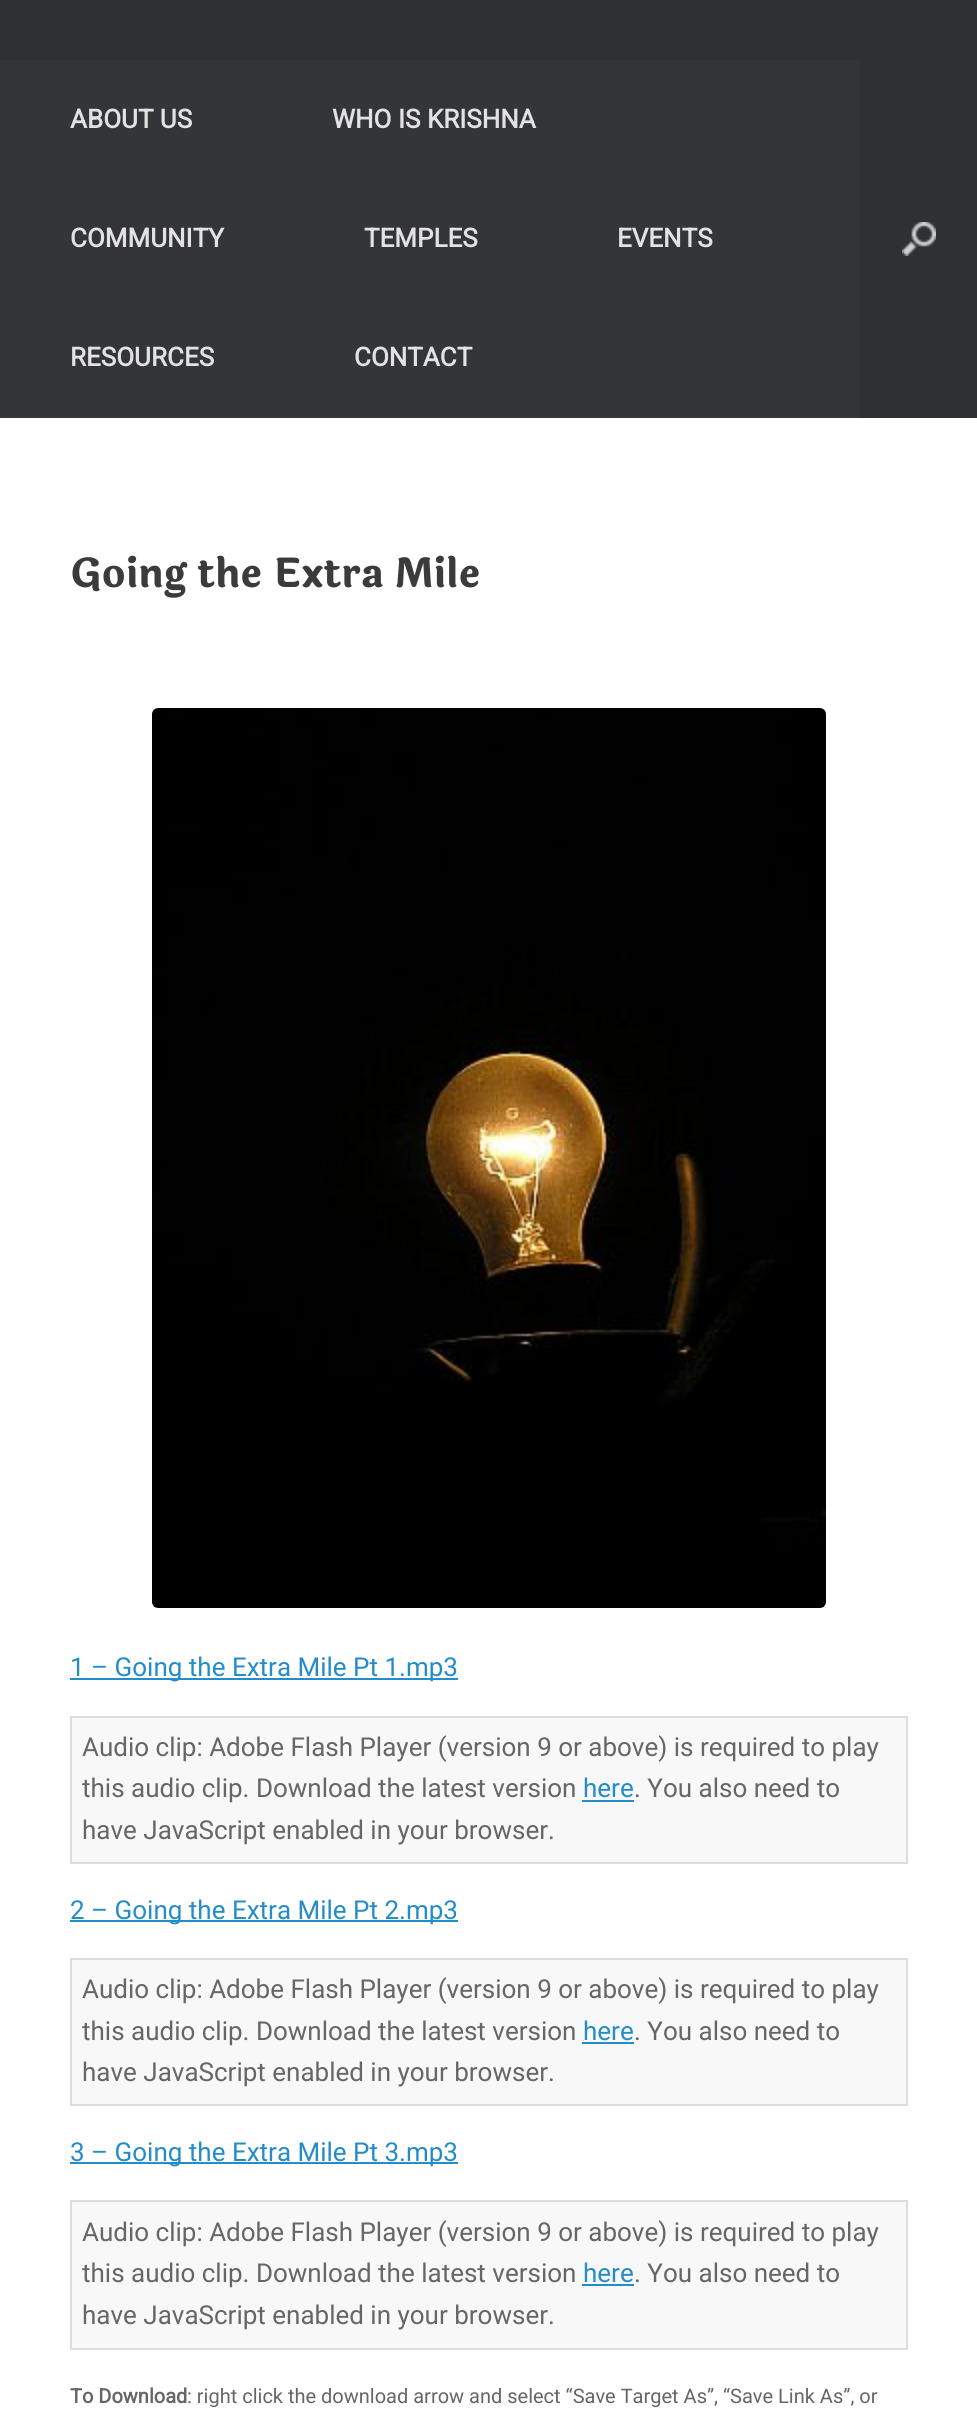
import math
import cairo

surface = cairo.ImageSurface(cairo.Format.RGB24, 977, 2431)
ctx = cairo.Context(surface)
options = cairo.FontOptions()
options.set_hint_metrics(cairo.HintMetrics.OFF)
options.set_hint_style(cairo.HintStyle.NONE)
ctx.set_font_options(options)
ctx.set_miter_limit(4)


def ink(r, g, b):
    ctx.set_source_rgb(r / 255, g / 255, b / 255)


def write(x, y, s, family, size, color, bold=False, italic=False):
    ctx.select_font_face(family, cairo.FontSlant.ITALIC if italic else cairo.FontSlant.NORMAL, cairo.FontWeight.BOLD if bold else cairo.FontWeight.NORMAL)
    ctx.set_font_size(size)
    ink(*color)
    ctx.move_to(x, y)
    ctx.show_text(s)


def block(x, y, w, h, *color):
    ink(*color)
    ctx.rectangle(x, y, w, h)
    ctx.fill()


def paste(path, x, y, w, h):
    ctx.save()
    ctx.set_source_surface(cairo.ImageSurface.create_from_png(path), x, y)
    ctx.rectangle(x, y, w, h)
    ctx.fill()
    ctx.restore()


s1 = dict(family="Roboto", size=26, color=(226, 226, 226), bold=True)
s2 = dict(family="Laila", size=40, color=(59, 59, 59), bold=True)
s3 = dict(family="Roboto", size=26, color=(36, 140, 200))
s4 = dict(family="Roboto", size=26, color=(102, 102, 102))
s5 = dict(family="Roboto", size=20, color=(102, 102, 102), bold=True)
s6 = dict(family="Roboto", size=20, color=(102, 102, 102))

ink(47, 48, 51)
ctx.paint()
block(0, 60, 860, 358, 52, 53, 56)
write(70, 128, "ABOUT US", **s1)
write(332, 128, "WHO IS KRISHNA", **s1)
write(70, 247, "COMMUNITY", **s1)
write(364, 247, "TEMPLES", **s1)
write(617, 247, "EVENTS", **s1)
write(70, 366, "RESOURCES", **s1)
write(354, 366, "CONTACT", **s1)
paste("pic1.png", 902, 222, 34, 34)
block(0, 418, 977, 2013, 255, 255, 255)
write(70, 587, "Going the Extra Mile", **s2)
paste("pic2.png", 152, 708, 674, 900)
block(70, 1678, 388, 2, 36, 140, 200)
write(70, 1676, "1 – Going the Extra Mile Pt 1.mp3", **s3)
ink(248, 248, 248)
ctx.rectangle(71, 1717, 836, 146)
ctx.fill_preserve()
ink(221, 221, 221)
ctx.stroke()
write(82, 1756, "Audio clip: Adobe Flash Player (version 9 or above) is required to play", **s4)
write(82, 1797, "this audio clip. Download the latest version", **s4)
write(583, 1797, "here", **s3)
block(582, 1800, 52, 2, 36, 140, 200)
write(634, 1797, ". You also need to", **s4)
write(82, 1839, "have JavaScript enabled in your browser.", **s4)
block(70, 1920, 388, 2, 36, 140, 200)
write(70, 1919, "2 – Going the Extra Mile Pt 2.mp3", **s3)
ink(248, 248, 248)
ctx.rectangle(71, 1959, 836, 146)
ctx.fill_preserve()
ink(221, 221, 221)
ctx.stroke()
write(82, 1998, "Audio clip: Adobe Flash Player (version 9 or above) is required to play", **s4)
write(82, 2040, "this audio clip. Download the latest version", **s4)
write(583, 2040, "here", **s3)
block(582, 2042, 52, 2, 36, 140, 200)
write(634, 2040, ". You also need to", **s4)
write(82, 2081, "have JavaScript enabled in your browser.", **s4)
block(70, 2162, 388, 2, 36, 140, 200)
write(70, 2161, "3 – Going the Extra Mile Pt 3.mp3", **s3)
ink(248, 248, 248)
ctx.rectangle(71, 2201, 836, 148)
ctx.fill_preserve()
ink(221, 221, 221)
ctx.stroke()
write(82, 2241, "Audio clip: Adobe Flash Player (version 9 or above) is required to play", **s4)
write(82, 2282, "this audio clip. Download the latest version", **s4)
write(583, 2282, "here", **s3)
block(582, 2284, 52, 2, 36, 140, 200)
write(634, 2282, ". You also need to", **s4)
write(82, 2324, "have JavaScript enabled in your browser.", **s4)
write(70, 2403, "To Download", **s5)
write(187, 2403, ": right click the download arrow and select “Save Target As”, “Save Link As”, or", **s6)
surface.write_to_png("screenshot.png")
